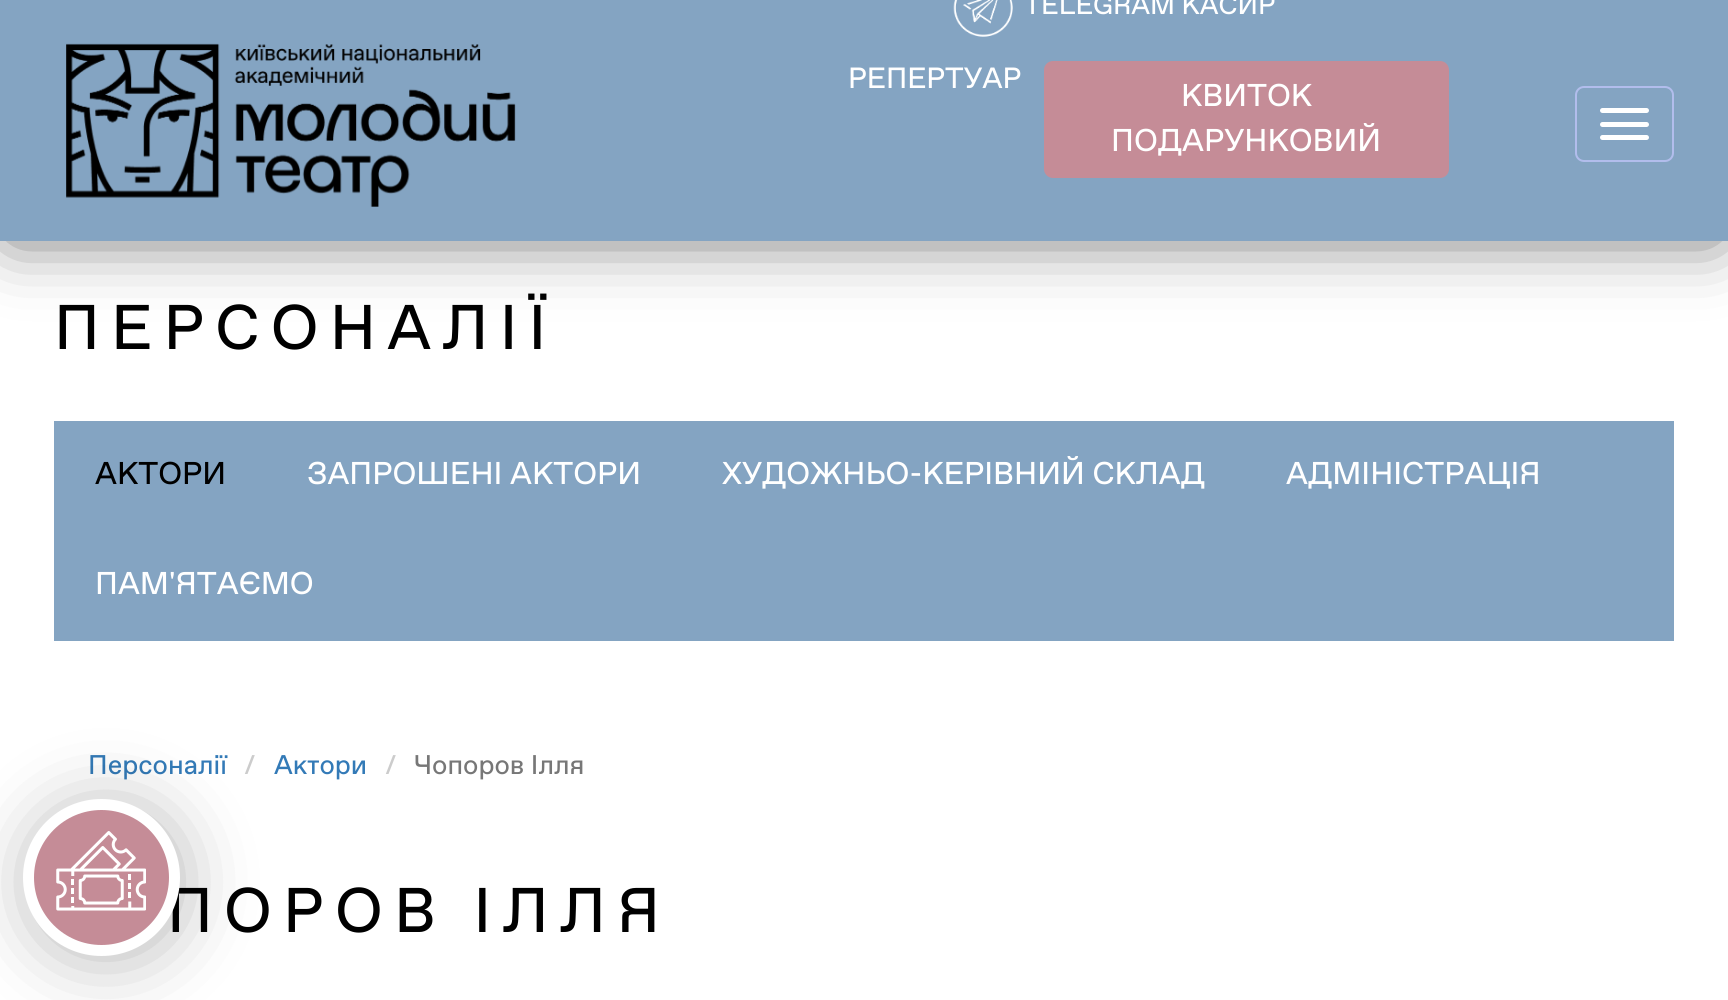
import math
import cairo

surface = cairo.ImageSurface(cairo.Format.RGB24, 1728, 1000)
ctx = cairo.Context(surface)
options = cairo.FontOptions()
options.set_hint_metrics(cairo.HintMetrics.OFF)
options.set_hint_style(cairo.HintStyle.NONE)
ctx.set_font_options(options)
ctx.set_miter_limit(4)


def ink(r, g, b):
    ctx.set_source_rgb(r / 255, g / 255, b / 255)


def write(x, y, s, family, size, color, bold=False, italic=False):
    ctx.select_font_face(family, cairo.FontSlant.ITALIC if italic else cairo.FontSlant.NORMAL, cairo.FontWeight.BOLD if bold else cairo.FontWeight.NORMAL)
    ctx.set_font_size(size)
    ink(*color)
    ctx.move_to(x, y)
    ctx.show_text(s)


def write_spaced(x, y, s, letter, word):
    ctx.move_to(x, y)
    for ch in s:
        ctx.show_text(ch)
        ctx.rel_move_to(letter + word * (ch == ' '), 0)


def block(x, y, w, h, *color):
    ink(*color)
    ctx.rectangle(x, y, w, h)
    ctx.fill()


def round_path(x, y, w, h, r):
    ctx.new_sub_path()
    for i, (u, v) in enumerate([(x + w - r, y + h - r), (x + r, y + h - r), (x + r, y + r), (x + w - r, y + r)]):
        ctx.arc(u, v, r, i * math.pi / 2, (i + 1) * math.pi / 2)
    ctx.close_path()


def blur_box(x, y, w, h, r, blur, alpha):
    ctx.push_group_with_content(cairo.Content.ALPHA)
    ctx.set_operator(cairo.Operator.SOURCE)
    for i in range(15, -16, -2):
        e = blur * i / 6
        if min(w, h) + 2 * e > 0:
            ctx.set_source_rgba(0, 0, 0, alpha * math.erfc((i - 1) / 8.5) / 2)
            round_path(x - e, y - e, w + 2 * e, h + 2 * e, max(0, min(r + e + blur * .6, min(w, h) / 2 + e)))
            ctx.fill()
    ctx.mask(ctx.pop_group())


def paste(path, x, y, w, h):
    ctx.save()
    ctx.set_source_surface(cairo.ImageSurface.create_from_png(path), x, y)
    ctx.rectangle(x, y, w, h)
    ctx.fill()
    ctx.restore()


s1 = dict(family="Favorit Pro", size=27, color=(255, 255, 255))
s2 = dict(family="Favorit Pro", size=29.25, color=(255, 255, 255))
s3 = dict(family="Favorit Pro", size=31.5, color=(255, 255, 255))
s4 = dict(family="Favorit Pro", size=31.5, color=(0, 0, 0))
s5 = dict(family="Favorit Pro", size=27, color=(51, 122, 183))
s6 = dict(family="Favorit Pro", size=27, color=(204, 204, 204))
s7 = dict(family="Favorit Pro", size=27, color=(119, 119, 119))

ink(255, 255, 255)
ctx.paint()
ink(0, 0, 0)
blur_box(11, 16, 1706, 218, 0, 35, 0.66)
block(0, 0, 1728, 241, 132, 164, 194)
paste("pic1.png", 953, 0, 60, 37)
write(1024, 14, "TELEGRAM КАСИР", **s1)
write(848, 88, "РЕПЕРТУАР", **s2)
ink(197, 140, 151)
round_path(1044, 61, 405, 117, 9)
ctx.fill()
write(1181, 106, "КВИТОК", **s3)
write(1111, 151, "ПОДАРУНКОВИЙ", **s3)
paste("pic2.png", 66, 43, 450, 164)
round_path(1576, 87, 97, 74, 8)
ink(178, 189, 236)
ctx.stroke()
ink(255, 255, 255)
round_path(1600, 108, 49, 5, 2.5)
ctx.fill()
round_path(1600, 122, 49, 5, 2.5)
ctx.fill()
round_path(1600, 135, 49, 5, 2.5)
ctx.fill()
ctx.set_font_size(63)
ink(0, 0, 0)
write_spaced(54, 349, "ПЕРСОНАЛІЇ", 11.25, 0)
block(54, 421, 1620, 220, 132, 164, 194)
write(95, 484, "АКТОРИ", **s4)
write(307, 484, "ЗАПРОШЕНІ АКТОРИ", **s3)
write(722, 484, "ХУДОЖНЬО-КЕРІВНИЙ СКЛАД", **s3)
write(1286, 484, "АДМІНІСТРАЦІЯ", **s3)
write(95, 594, "ПАМ'ЯТАЄМО", **s3)
write(88, 774, "Персоналії", **s5)
write(244, 774, "/", **s6)
write(274, 774, "Актори", **s5)
write(385, 774, "/", **s6)
write(414, 774, "Чопоров Ілля", **s7)
ctx.set_font_size(63)
ink(0, 0, 0)
write_spaced(167, 932, "ПОРОВ ІЛЛЯ", 11.25, 0)
ink(0, 0, 0)
blur_box(32, 808, 148, 148, 74, 37, 0.3)
ink(197, 140, 151)
ctx.arc(101.5, 877.5, 73, 0, 2 * math.pi)
ctx.fill_preserve()
ink(255, 255, 255)
ctx.set_line_width(11)
ctx.stroke()
paste("pic3.png", 56, 831, 90, 80)
surface.write_to_png("screenshot.png")
